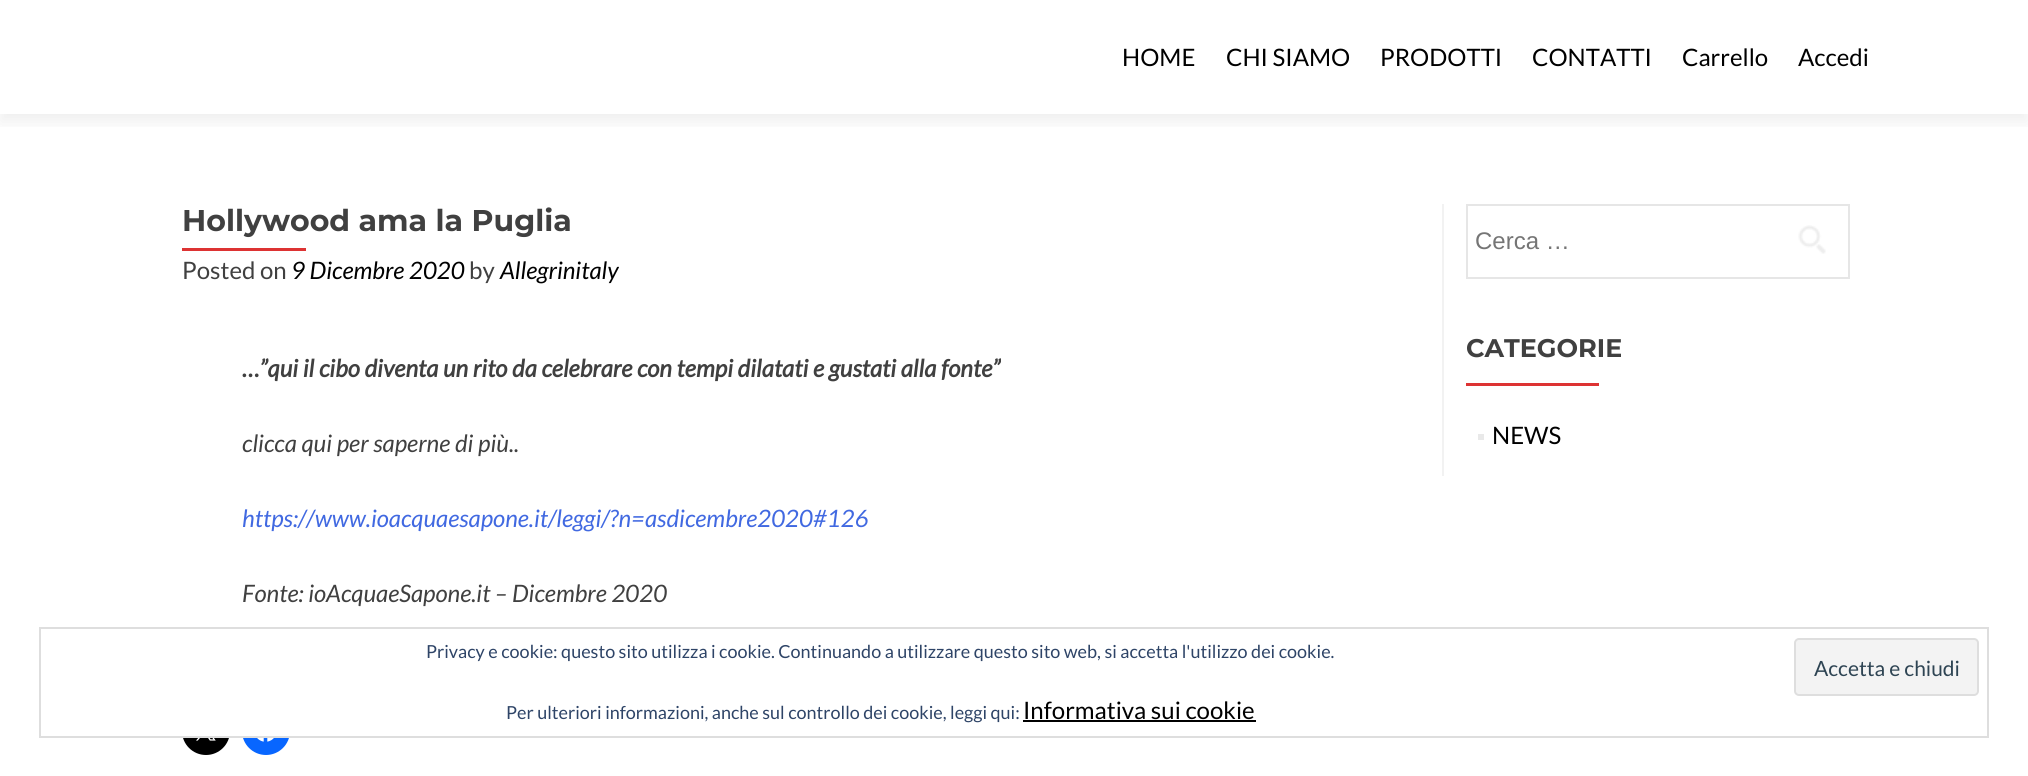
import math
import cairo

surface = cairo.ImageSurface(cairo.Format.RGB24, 2028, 776)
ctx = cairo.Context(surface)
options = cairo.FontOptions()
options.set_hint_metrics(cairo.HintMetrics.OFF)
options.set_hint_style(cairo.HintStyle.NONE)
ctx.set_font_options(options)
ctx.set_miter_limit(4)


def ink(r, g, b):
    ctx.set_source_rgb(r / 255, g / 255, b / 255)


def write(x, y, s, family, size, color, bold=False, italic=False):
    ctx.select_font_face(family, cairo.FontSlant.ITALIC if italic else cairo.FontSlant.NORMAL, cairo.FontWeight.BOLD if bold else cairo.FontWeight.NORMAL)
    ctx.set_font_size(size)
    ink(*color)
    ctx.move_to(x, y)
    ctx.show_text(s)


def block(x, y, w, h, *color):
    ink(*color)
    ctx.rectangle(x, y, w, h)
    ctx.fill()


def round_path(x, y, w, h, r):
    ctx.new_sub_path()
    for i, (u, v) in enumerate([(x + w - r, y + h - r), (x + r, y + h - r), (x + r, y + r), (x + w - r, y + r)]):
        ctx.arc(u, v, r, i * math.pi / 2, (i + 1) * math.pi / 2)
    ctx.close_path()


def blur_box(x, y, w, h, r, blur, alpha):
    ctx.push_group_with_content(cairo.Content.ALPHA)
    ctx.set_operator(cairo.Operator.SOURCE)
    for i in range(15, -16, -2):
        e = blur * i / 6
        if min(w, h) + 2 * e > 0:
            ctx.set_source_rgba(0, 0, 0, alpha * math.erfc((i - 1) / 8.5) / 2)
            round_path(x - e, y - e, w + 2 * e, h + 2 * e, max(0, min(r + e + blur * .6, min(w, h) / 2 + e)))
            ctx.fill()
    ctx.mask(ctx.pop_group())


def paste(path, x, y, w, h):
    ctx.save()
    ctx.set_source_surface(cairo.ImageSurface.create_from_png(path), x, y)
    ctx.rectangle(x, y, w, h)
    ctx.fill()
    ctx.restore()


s1 = dict(family="Lato", size=24, color=(0, 0, 0))
s2 = dict(family="Montserrat Thin", size=30, color=(64, 64, 64))
s3 = dict(family="Lato", size=24, color=(64, 64, 64))
s4 = dict(family="Lato", size=24, color=(0, 0, 0), italic=True)
s5 = dict(family="Lato", size=24, color=(64, 64, 64), bold=True, italic=True)
s6 = dict(family="Lato", size=24, color=(64, 64, 64), italic=True)
s7 = dict(family="Lato", size=24, color=(65, 105, 225), italic=True)
s8 = dict(family="Liberation Sans", size=24, color=(117, 117, 117))
s9 = dict(family="Montserrat Thin", size=25.5, color=(64, 64, 64))
s10 = dict(family="Lato", size=18, color=(46, 68, 103))
s11 = dict(family="Lato", size=21, color=(46, 68, 83))

ink(255, 255, 255)
ctx.paint()
ctx.save()
ctx.rectangle(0, 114, 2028, 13)
ctx.clip()
ink(50, 50, 50)
blur_box(0, 8, 2028, 114, 0, 8, 0.08)
ctx.restore()
write(1122, 66, "HOME", **s1)
write(1226, 66, "CHI SIAMO", **s1)
write(1380, 66, "PRODOTTI", **s1)
write(1532, 66, "CONTATTI", **s1)
write(1682, 66, "Carrello", **s1)
write(1798, 66, "Accedi", **s1)
write(182, 231, "Hollywood ama la Puglia", **s2)
block(182, 248, 124, 3, 221, 51, 51)
write(182, 279, "Posted on", **s3)
write(291, 279, "9 Dicembre 2020", **s4)
write(469, 279, "by", **s3)
write(500, 279, "Allegrinitaly", **s4)
write(242, 377, "…”qui il cibo diventa un rito da celebrare con tempi dilatati e gustati alla fonte”", **s5)
write(242, 452, "clicca qui per saperne di più..", **s6)
write(242, 527, "https://www.ioacquaesapone.it/leggi/?n=asdicembre2020#126", **s7)
write(242, 602, "Fonte: ioAcquaeSapone.it – Dicembre 2020", **s6)
ink(0, 0, 0)
ctx.new_path()
ctx.arc(206, 731, 24, 0, 2 * math.pi)
ctx.fill()
paste("pic1.png", 196, 738, 20, 3)
ink(8, 102, 255)
ctx.arc(266, 731, 24, 0, 2 * math.pi)
ctx.fill()
paste("pic2.png", 257, 738, 17, 4)
block(1442, 204, 2, 272, 242, 242, 242)
ctx.rectangle(1467, 205, 382, 73)
ink(230, 230, 230)
ctx.stroke()
write(1475, 249, "Cerca …", **s8)
paste("pic3.png", 1798, 225, 28, 29)
write(1466, 357, "CATEGORIE", **s9)
block(1466, 383, 133, 3, 221, 51, 51)
block(1478, 434, 6, 6, 233, 233, 233)
write(1492, 444, "NEWS", **s1)
block(182, 707, 108, 29, 255, 255, 255)
ctx.rectangle(40, 628, 1948, 109)
ink(222, 222, 222)
ctx.stroke()
write(426, 658, "Privacy e cookie: questo sito utilizza i cookie. Continuando a utilizzare questo sito web, si accetta l'utilizzo dei cookie.", **s10)
ink(243, 243, 243)
round_path(1795, 639, 183, 56, 4)
ctx.fill_preserve()
ink(222, 222, 222)
ctx.stroke()
write(1814, 676, "Accetta e chiudi", **s11)
write(506, 719, "Per ulteriori informazioni, anche sul controllo dei cookie, leggi qui:", **s10)
write(1023, 719, "Informativa sui cookie", **s1)
block(1023, 720, 233, 2, 0, 0, 0)
surface.write_to_png("screenshot.png")
